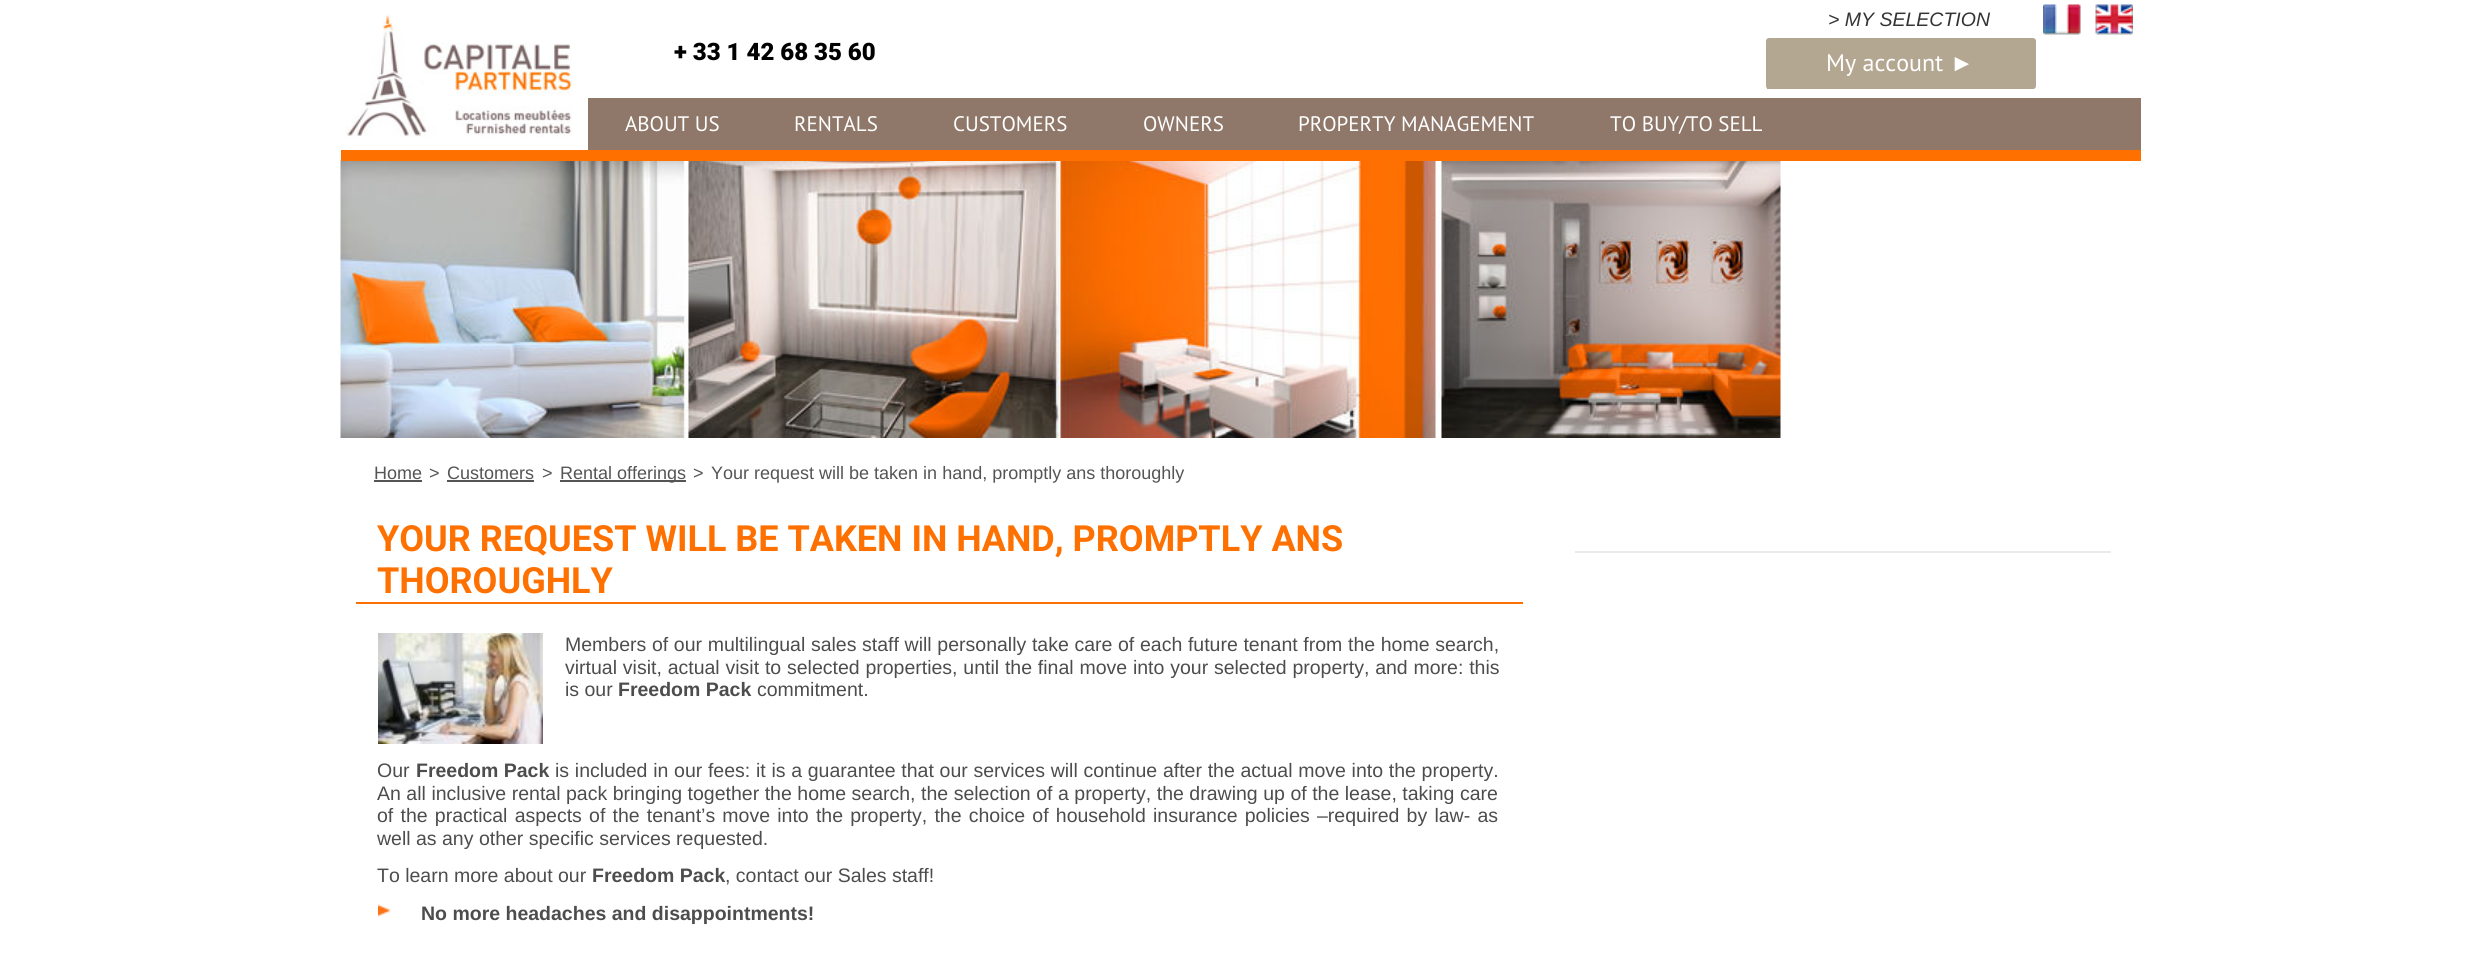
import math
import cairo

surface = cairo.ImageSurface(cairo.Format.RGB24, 2479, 959)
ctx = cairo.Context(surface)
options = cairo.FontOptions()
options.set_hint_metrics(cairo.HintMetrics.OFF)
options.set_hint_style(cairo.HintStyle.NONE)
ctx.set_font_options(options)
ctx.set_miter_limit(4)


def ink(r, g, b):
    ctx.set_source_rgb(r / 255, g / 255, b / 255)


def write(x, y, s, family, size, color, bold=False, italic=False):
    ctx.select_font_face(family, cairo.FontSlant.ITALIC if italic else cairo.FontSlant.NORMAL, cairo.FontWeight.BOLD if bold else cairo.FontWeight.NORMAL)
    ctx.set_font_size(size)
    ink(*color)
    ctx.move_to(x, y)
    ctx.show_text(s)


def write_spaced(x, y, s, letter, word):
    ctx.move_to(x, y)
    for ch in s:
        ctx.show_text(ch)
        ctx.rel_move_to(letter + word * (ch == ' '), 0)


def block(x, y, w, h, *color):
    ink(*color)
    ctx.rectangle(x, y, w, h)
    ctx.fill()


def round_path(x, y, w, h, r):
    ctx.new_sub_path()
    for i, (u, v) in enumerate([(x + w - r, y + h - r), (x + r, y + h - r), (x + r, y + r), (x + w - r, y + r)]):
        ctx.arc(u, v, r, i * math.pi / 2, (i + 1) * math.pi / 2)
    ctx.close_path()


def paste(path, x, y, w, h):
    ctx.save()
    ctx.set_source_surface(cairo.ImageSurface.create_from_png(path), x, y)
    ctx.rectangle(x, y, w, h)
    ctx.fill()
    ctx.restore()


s1 = dict(family="Liberation Sans", size=19.5, color=(51, 51, 51), italic=True)
s2 = dict(family="Roboto Black", size=24, color=(0, 0, 0))
s3 = dict(family="PT Sans", size=24, color=(255, 255, 255))
s4 = dict(family="Liberation Sans", size=24, color=(255, 255, 255))
s5 = dict(family="PT Sans", size=21, color=(255, 255, 255))
s6 = dict(family="Liberation Sans", size=18, color=(85, 85, 85))
s7 = dict(family="Roboto", size=36, color=(254, 112, 0), bold=True)
s8 = dict(family="Liberation Sans", size=19.5, color=(77, 77, 77))
s9 = dict(family="Liberation Sans", size=19.5, color=(77, 77, 77), bold=True)

ink(255, 255, 255)
ctx.paint()
paste("pic4.png", 340, 160, 1441, 278)
block(341, 150, 1800, 11, 254, 112, 0)
paste("pic1.png", 345, 14, 227, 123)
write(1828, 26, "> MY SELECTION", **s1)
paste("pic2.png", 2043, 4, 38, 31)
paste("pic3.png", 2095, 4, 38, 31)
write(674, 60, "+ 33 1 42 68 35 60", **s2)
ink(180, 167, 145)
round_path(1766, 38, 270, 51, 3)
ctx.fill()
block(1767, 88, 267, 1, 180, 167, 145)
write(1826, 71, "My account", **s3)
write(1950, 71, "►", **s4)
block(588, 98, 1553, 52, 143, 120, 106)
write(625, 131, "ABOUT US", **s5)
write(794, 131, "RENTALS", **s5)
write(953, 131, "CUSTOMERS", **s5)
write(1143, 131, "OWNERS", **s5)
write(1298, 131, "PROPERTY MANAGEMENT", **s5)
write(1610, 131, "TO BUY/TO SELL", **s5)
write(374, 479, "Home", **s6)
block(374, 480, 48, 2, 85, 85, 85)
write(429, 479, ">", **s6)
write(447, 479, "Customers", **s6)
block(447, 480, 87, 2, 85, 85, 85)
write(542, 479, ">", **s6)
block(560, 480, 126, 2, 85, 85, 85)
write(560, 479, "Rental offerings", **s6)
write(693, 479, ">", **s6)
write(711, 479, "Your request will be taken in hand, promptly ans thoroughly", **s6)
block(356, 602, 1167, 2, 254, 112, 0)
write(377, 551, "YOUR REQUEST WILL BE TAKEN IN HAND, PROMPTLY ANS", **s7)
write(377, 593, "THOROUGHLY", **s7)
paste("pic5.png", 378, 633, 165, 111)
ctx.select_font_face("Liberation Sans")
ctx.set_font_size(19.5)
ink(77, 77, 77)
write_spaced(565, 651, "Members of our multilingual sales staff will personally take care of each future tenant from the home search,", 0, 0.25)
write_spaced(565, 674, "virtual visit, actual visit to selected properties, until the final move into your selected property, and more: this", 0, 0.4)
write(565, 696, "is our", **s8)
write(618, 696, "Freedom Pack", **s9)
write(757, 696, "commitment.", **s8)
write(377, 777, "Our", **s8)
write(416, 777, "Freedom Pack", **s9)
ctx.select_font_face("Liberation Sans")
write_spaced(555, 777, "is included in our fees: it is a guarantee that our services will continue after the actual move into the property.", 0, 0.3)
write_spaced(377, 800, "An all inclusive rental pack bringing together the home search, the selection of a property, the drawing up of the lease, taking care", 0, 0.1)
write_spaced(377, 822, "of the practical aspects of the tenant’s move into the property, the choice of household insurance policies –required by law- as", 0, 1.8)
write(377, 845, "well as any other specific services requested.", **s8)
write(377, 882, "To learn more about our", **s8)
write(592, 882, "Freedom Pack", **s9)
write(725, 882, ", contact our Sales staff!", **s8)
paste("pic6.png", 378, 904, 13, 13)
write(421, 920, "No more headaches and disappointments!", **s9)
block(1575, 551, 536, 2, 234, 234, 234)
surface.write_to_png("screenshot.png")
